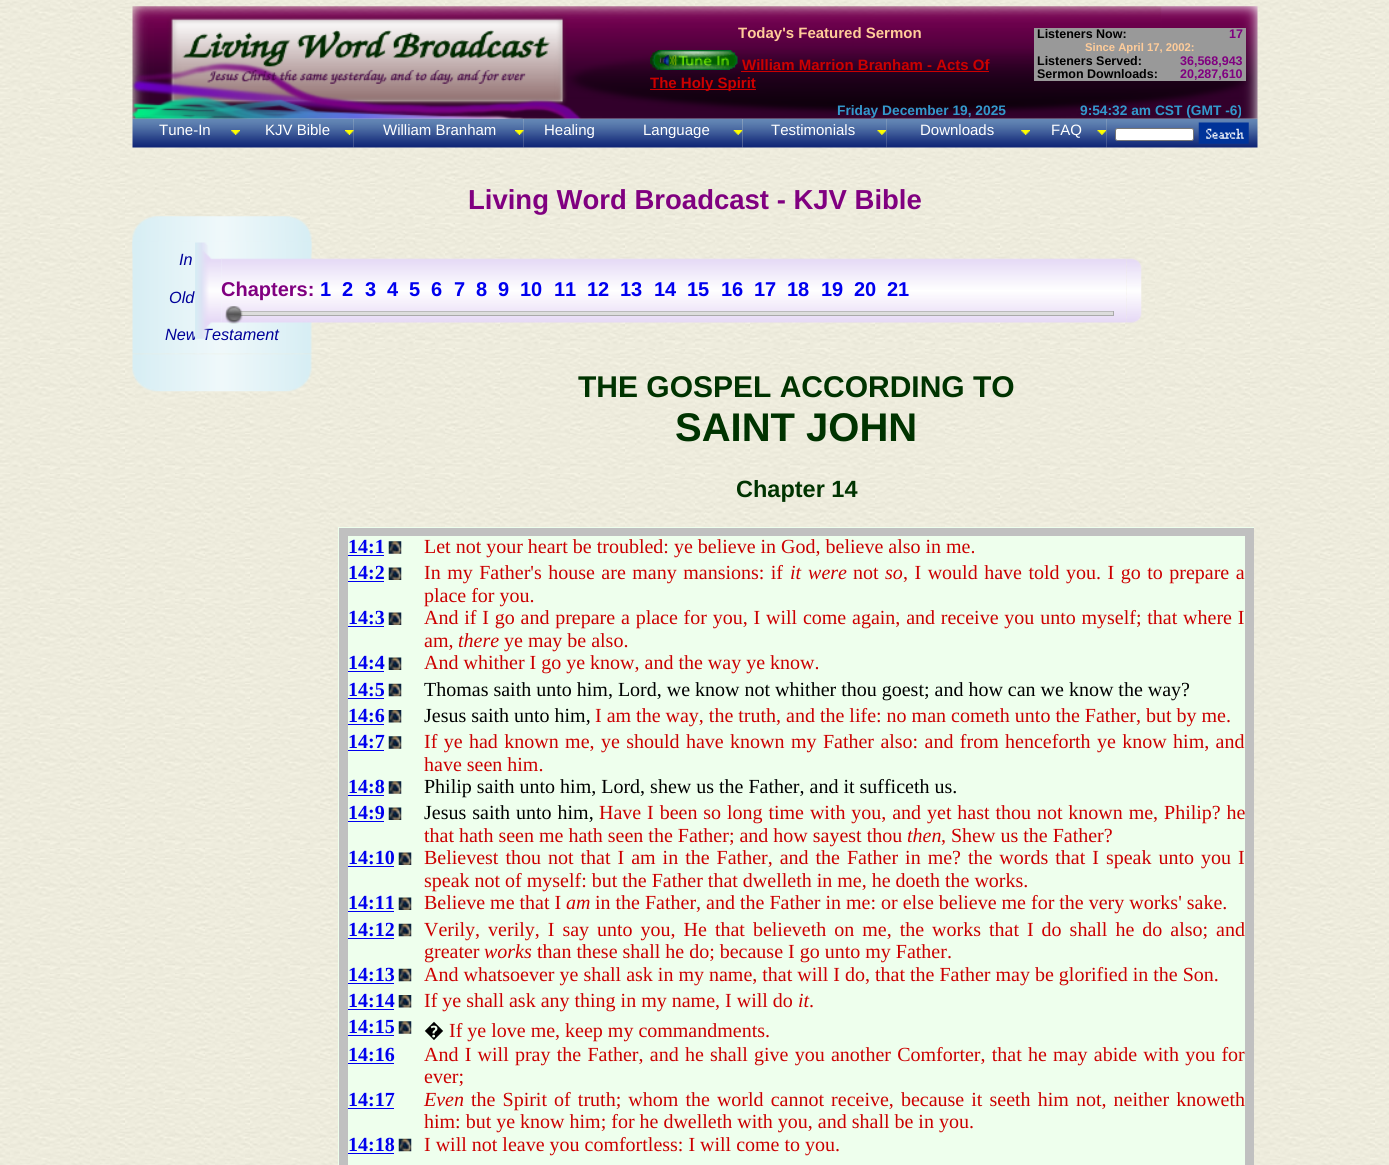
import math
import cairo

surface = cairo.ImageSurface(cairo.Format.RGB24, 1389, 1165)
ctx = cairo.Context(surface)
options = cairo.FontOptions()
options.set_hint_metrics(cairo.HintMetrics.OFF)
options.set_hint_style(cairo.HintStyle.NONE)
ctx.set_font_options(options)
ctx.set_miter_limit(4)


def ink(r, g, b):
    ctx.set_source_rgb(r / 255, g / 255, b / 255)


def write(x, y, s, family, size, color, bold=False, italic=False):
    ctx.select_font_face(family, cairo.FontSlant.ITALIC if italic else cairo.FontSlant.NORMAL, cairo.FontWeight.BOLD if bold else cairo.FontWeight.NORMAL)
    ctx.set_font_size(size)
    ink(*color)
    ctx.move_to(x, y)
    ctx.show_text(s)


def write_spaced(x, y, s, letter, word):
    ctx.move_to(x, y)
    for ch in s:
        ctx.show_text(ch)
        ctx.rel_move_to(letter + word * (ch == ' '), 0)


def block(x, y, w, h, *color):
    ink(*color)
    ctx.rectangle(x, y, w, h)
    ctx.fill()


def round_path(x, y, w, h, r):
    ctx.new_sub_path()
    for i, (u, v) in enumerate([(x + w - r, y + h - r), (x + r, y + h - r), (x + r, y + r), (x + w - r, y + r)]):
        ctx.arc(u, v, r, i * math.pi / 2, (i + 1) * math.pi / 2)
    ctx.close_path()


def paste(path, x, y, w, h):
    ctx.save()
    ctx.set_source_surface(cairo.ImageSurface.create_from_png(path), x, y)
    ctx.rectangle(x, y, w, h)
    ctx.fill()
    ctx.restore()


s1 = dict(family="Liberation Sans", size=15, color=(255, 204, 153), bold=True)
s2 = dict(family="Liberation Sans", size=15, color=(204, 0, 0), bold=True)
s3 = dict(family="Liberation Sans", size=12.5, color=(0, 0, 0), bold=True)
s4 = dict(family="Liberation Sans", size=12.5, color=(128, 0, 128), bold=True)
s5 = dict(family="Liberation Sans", size=11.25, color=(255, 204, 153), bold=True)
s6 = dict(family="Liberation Sans", size=13.75, color=(51, 153, 204), bold=True)
s7 = dict(family="Liberation Sans", size=15, color=(255, 255, 255))
s8 = dict(family="Liberation Sans", size=27.5, color=(128, 0, 128), bold=True)
s9 = dict(family="Liberation Sans", size=16.25, color=(0, 0, 153), italic=True)
s10 = dict(family="Liberation Sans", size=20, color=(128, 0, 128), bold=True)
s11 = dict(family="Liberation Sans", size=20, color=(0, 0, 238), bold=True)
s12 = dict(family="Liberation Sans", size=30, color=(0, 51, 0), bold=True)
s13 = dict(family="Liberation Sans", size=40, color=(0, 51, 0), bold=True)
s14 = dict(family="Liberation Sans", size=23.5, color=(0, 51, 0), bold=True)
s15 = dict(family="Liberation Serif", size=20, color=(0, 0, 238), bold=True)
s16 = dict(family="Liberation Serif", size=20, color=(204, 0, 0))
s17 = dict(family="Liberation Serif", size=20, color=(204, 0, 0), italic=True)
s18 = dict(family="Liberation Serif", size=20, color=(0, 0, 0))
s19 = dict(family="Noto Sans", size=20, color=(0, 0, 0))

ink(255, 255, 255)
ctx.paint()
paste("pic1.png", 0, 0, 1389, 1165)
paste("pic2.png", 132, 6, 1126, 113)
write(738, 38, "Today's Featured Sermon", **s1)
paste("pic3.png", 650, 50, 88, 20)
write(742, 70, "William Marrion Branham - Acts Of", **s2)
block(741, 71, 248, 1, 204, 0, 0)
block(650, 89, 106, 1, 204, 0, 0)
write(650, 88, "The Holy Spirit", **s2)
block(1034, 28, 212, 53, 153, 153, 153)
write(1037, 38, "Listeners Now:", **s3)
write(1229, 38, "17", **s4)
write(1085, 51, "Since April 17, 2002:", **s5)
write(1037, 65, "Listeners Served:", **s3)
write(1180, 65, "36,568,943", **s4)
write(1037, 78, "Sermon Downloads:", **s3)
write(1180, 78, "20,287,610", **s4)
write(837, 115, "Friday December 19, 2025", **s6)
write(1080, 115, "9:54:32 am CST (GMT -6)", **s6)
paste("pic4.png", 132, 118, 108, 30)
paste("pic5.png", 231, 130, 9, 5)
write(159, 135, "Tune-In", **s7)
paste("pic6.png", 240, 118, 114, 30)
paste("pic7.png", 345, 130, 9, 5)
write(265, 135, "KJV Bible", **s7)
paste("pic8.png", 353, 118, 171, 30)
paste("pic9.png", 515, 130, 9, 5)
write(383, 135, "William Branham", **s7)
paste("pic10.png", 523, 118, 87, 30)
write(544, 135, "Healing", **s7)
paste("pic11.png", 610, 118, 133, 30)
paste("pic12.png", 733, 130, 10, 5)
write(643, 135, "Language", **s7)
paste("pic13.png", 742, 118, 145, 30)
paste("pic14.png", 877, 130, 10, 5)
write(771, 135, "Testimonials", **s7)
paste("pic15.png", 886, 118, 144, 30)
paste("pic5.png", 1021, 130, 9, 5)
write(920, 135, "Downloads", **s7)
paste("pic16.png", 1030, 118, 77, 30)
paste("pic17.png", 1097, 130, 10, 5)
write(1051, 135, "FAQ", **s7)
paste("pic18.png", 1106, 118, 152, 30)
round_path(1115.5, 128.5, 78, 12, 2)
ctx.fill_preserve()
ink(118, 118, 118)
ctx.set_line_width(1)
ctx.stroke()
paste("pic19.png", 1198, 122, 51, 22)
write(468, 209, "Living Word Broadcast - KJV Bible", **s8)
paste("pic20.png", 132, 216, 180, 38)
paste("pic22.png", 132, 353, 180, 39)
paste("pic21.png", 132, 241, 180, 113)
write(179, 265, "In", **s9)
write(169, 303, "Old", **s9)
write(165, 340, "New Testament", **s9)
paste("pic24.png", 221, 258, 905, 65)
paste("pic23.png", 195, 242, 27, 97)
write(221, 296, "Chapters:", **s10)
write(320, 296, "1", **s11)
write(342, 296, "2", **s11)
write(365, 296, "3", **s11)
write(387, 296, "4", **s11)
write(409, 296, "5", **s11)
write(431, 296, "6", **s11)
write(454, 296, "7", **s11)
write(476, 296, "8", **s11)
write(498, 296, "9", **s11)
write(520, 296, "10", **s11)
write(554, 296, "11", **s11)
write(587, 296, "12", **s11)
write(620, 296, "13", **s11)
write(654, 296, "14", **s11)
write(687, 296, "15", **s11)
write(721, 296, "16", **s11)
write(754, 296, "17", **s11)
write(787, 296, "18", **s11)
write(821, 296, "19", **s11)
write(854, 296, "20", **s11)
write(887, 296, "21", **s11)
block(234, 312, 880, 3, 221, 221, 221)
block(234, 311, 880, 1, 187, 187, 187)
block(1113, 311, 1, 5, 170, 170, 170)
block(234, 315, 880, 1, 170, 170, 170)
paste("pic25.png", 225, 306, 18, 18)
paste("pic26.png", 1126, 258, 16, 65)
write(578, 397, "THE GOSPEL ACCORDING TO", **s12)
write(675, 441, "SAINT JOHN", **s13)
write(736, 497, "Chapter 14", **s14)
block(338, 527, 916, 638, 238, 255, 237)
block(348, 528, 897, 8, 192, 192, 192)
block(1245, 528, 9, 637, 192, 192, 192)
block(339, 528, 9, 637, 192, 192, 192)
write(348, 553, "14:1", **s15)
block(348, 555, 36, 1, 0, 0, 238)
paste("pic27.png", 388, 541, 14, 13)
write(424, 553, "Let not your heart be troubled: ye believe in God, believe also in me.", **s16)
write(348, 579, "14:2", **s15)
block(348, 581, 36, 1, 0, 0, 238)
paste("pic28.png", 388, 567, 14, 13)
ctx.select_font_face("Liberation Serif")
ink(204, 0, 0)
write_spaced(424, 579, "In my Father's house are many mansions: if", 0, 1.5)
ctx.select_font_face("Liberation Serif", cairo.FontSlant.ITALIC)
write_spaced(790, 579, "it were", 0, 2)
write(853, 579, "not", **s16)
write(885, 579, "so", **s17)
ctx.select_font_face("Liberation Serif")
write_spaced(903, 579, ", I would have told you. I go to prepare a", 0, 1.5)
write(424, 602, "place for you.", **s16)
write(348, 624, "14:3", **s15)
block(348, 626, 36, 1, 0, 0, 238)
paste("pic28.png", 388, 612, 14, 13)
ctx.select_font_face("Liberation Serif")
ink(204, 0, 0)
write_spaced(424, 624, "And if I go and prepare a place for you, I will come again, and receive you unto myself; that where I", 0, 0.8)
write(424, 647, "am,", **s16)
write(458, 647, "there", **s17)
write(504, 647, "ye may be also.", **s16)
write(348, 669, "14:4", **s15)
block(348, 671, 36, 1, 0, 0, 238)
paste("pic28.png", 388, 657, 14, 13)
write(424, 669, "And whither I go ye know, and the way ye know.", **s16)
write(348, 696, "14:5", **s15)
block(348, 698, 36, 1, 0, 0, 238)
paste("pic29.png", 388, 683, 14, 14)
write(424, 696, "Thomas saith unto him, Lord, we know not whither thou goest; and how can we know the way?", **s18)
write(348, 722, "14:6", **s15)
block(348, 724, 36, 1, 0, 0, 238)
paste("pic30.png", 388, 710, 14, 13)
write(424, 722, "Jesus saith unto him,", **s18)
write(595, 722, "I am the way, the truth, and the life: no man cometh unto the Father, but by me.", **s16)
write(348, 748, "14:7", **s15)
block(348, 750, 36, 1, 0, 0, 238)
paste("pic27.png", 388, 736, 14, 13)
ctx.select_font_face("Liberation Serif")
ink(204, 0, 0)
write_spaced(424, 748, "If ye had known me, ye should have known my Father also: and from henceforth ye know him, and", 0, 1.4)
write(424, 771, "have seen him.", **s16)
write(348, 793, "14:8", **s15)
block(348, 795, 36, 1, 0, 0, 238)
paste("pic31.png", 388, 781, 14, 13)
write(424, 793, "Philip saith unto him, Lord, shew us the Father, and it sufficeth us.", **s18)
write(348, 819, "14:9", **s15)
block(348, 821, 36, 1, 0, 0, 238)
paste("pic28.png", 388, 807, 14, 13)
ctx.select_font_face("Liberation Serif")
ink(0, 0, 0)
write_spaced(424, 819, "Jesus saith unto him,", 0, 1)
ink(204, 0, 0)
write_spaced(599, 819, "Have I been so long time with you, and yet hast thou not known me, Philip? he", 0, 0.9)
write(424, 842, "that hath seen me hath seen the Father; and how sayest thou", **s16)
write(907, 842, "then", **s17)
write(941, 842, ", Shew us the Father?", **s16)
write(348, 864, "14:10", **s15)
block(348, 866, 46, 1, 0, 0, 238)
paste("pic28.png", 398, 852, 14, 13)
ctx.select_font_face("Liberation Serif")
ink(204, 0, 0)
write_spaced(424, 864, "Believest thou not that I am in the Father, and the Father in me? the words that I speak unto you I", 0, 2)
write(424, 887, "speak not of myself: but the Father that dwelleth in me, he doeth the works.", **s16)
write(348, 909, "14:11", **s15)
block(348, 911, 46, 1, 0, 0, 238)
paste("pic28.png", 398, 897, 14, 13)
write(424, 909, "Believe me that I", **s16)
write(566, 909, "am", **s17)
write(595, 909, "in the Father, and the Father in me: or else believe me for the very works' sake.", **s16)
write(348, 936, "14:12", **s15)
block(348, 938, 46, 1, 0, 0, 238)
paste("pic29.png", 398, 923, 14, 14)
ctx.select_font_face("Liberation Serif")
ink(204, 0, 0)
write_spaced(424, 936, "Verily, verily, I say unto you, He that believeth on me, the works that I do shall he do also; and", 0, 3)
write(424, 958, "greater", **s16)
write(484, 958, "works", **s17)
write(537, 958, "than these shall he do; because I go unto my Father.", **s16)
write(348, 981, "14:13", **s15)
block(348, 983, 46, 1, 0, 0, 238)
paste("pic29.png", 398, 968, 14, 14)
write(424, 981, "And whatsoever ye shall ask in my name, that will I do, that the Father may be glorified in the Son.", **s16)
write(348, 1007, "14:14", **s15)
block(348, 1009, 46, 1, 0, 0, 238)
paste("pic30.png", 398, 995, 14, 13)
write(424, 1007, "If ye shall ask any thing in my name, I will do", **s16)
write(798, 1007, "it", **s17)
write(809, 1007, ".", **s16)
write(348, 1033, "14:15", **s15)
block(348, 1035, 46, 1, 0, 0, 238)
paste("pic32.png", 398, 1021, 14, 13)
write(424, 1037, "�", **s19)
write(449, 1037, "If ye love me, keep my commandments.", **s16)
write(348, 1061, "14:16", **s15)
block(348, 1063, 46, 1, 0, 0, 238)
ctx.select_font_face("Liberation Serif")
ink(204, 0, 0)
write_spaced(424, 1061, "And I will pray the Father, and he shall give you another Comforter, that he may abide with you for", 0, 1.25)
write(424, 1083, "ever;", **s16)
write(348, 1106, "14:17", **s15)
block(348, 1108, 46, 1, 0, 0, 238)
write(424, 1106, "Even", **s17)
ctx.select_font_face("Liberation Serif")
write_spaced(471, 1106, "the Spirit of truth; whom the world cannot receive, because it seeth him not, neither knoweth", 0, 2.1)
write(424, 1128, "him: but ye know him; for he dwelleth with you, and shall be in you.", **s16)
write(348, 1151, "14:18", **s15)
block(348, 1153, 46, 1, 0, 0, 238)
paste("pic29.png", 398, 1138, 14, 14)
write(424, 1151, "I will not leave you comfortless: I will come to you.", **s16)
surface.write_to_png("screenshot.png")
